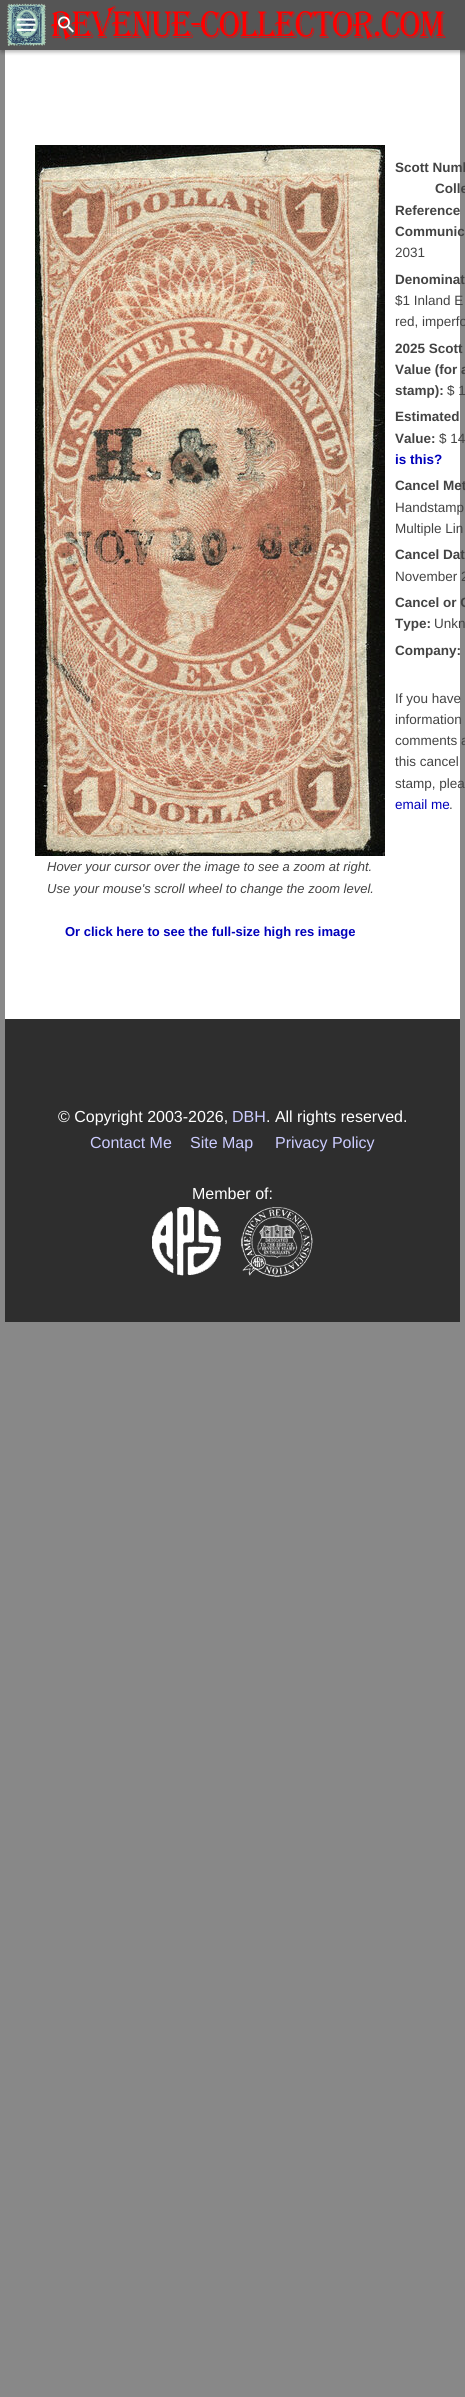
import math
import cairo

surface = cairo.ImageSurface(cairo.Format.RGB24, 465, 2397)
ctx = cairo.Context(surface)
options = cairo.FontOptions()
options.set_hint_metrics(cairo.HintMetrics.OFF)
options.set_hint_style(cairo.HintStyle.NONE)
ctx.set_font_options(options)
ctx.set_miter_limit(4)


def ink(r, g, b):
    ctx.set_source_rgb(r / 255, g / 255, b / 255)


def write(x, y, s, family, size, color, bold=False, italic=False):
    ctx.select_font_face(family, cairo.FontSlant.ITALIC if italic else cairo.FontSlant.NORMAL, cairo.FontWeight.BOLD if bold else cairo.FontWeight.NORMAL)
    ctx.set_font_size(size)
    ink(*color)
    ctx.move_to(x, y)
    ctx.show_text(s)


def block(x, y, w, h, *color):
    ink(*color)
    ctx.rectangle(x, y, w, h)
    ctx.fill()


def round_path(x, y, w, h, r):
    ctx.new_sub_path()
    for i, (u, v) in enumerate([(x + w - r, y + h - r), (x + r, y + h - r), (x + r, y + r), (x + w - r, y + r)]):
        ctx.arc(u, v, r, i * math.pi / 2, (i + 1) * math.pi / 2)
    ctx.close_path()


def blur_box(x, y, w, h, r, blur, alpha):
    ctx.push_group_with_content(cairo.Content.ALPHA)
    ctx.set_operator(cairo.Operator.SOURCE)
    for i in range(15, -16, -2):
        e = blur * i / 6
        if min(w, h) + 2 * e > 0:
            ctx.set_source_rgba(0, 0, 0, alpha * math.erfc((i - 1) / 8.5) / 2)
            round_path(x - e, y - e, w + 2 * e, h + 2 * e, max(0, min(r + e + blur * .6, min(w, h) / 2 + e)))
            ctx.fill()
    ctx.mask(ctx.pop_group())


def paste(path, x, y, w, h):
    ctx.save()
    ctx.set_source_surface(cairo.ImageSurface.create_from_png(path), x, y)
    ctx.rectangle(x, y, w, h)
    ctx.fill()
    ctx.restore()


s1 = dict(family="Liberation Sans", size=13.5, color=(67, 67, 67), bold=True)
s2 = dict(family="Liberation Sans", size=13.5, color=(67, 67, 67))
s3 = dict(family="Liberation Sans", size=13.5, color=(0, 0, 187), bold=True)
s4 = dict(family="Liberation Sans", size=13.5, color=(0, 0, 187))
s5 = dict(family="Liberation Sans", size=13, color=(67, 67, 67), italic=True)
s6 = dict(family="Liberation Sans", size=13, color=(0, 0, 187), bold=True)
s7 = dict(family="Liberation Sans", size=16, color=(255, 255, 255))
s8 = dict(family="Liberation Sans", size=16, color=(204, 204, 255))

ink(136, 136, 136)
ctx.paint()
block(5, 50, 455, 969, 255, 255, 255)
ink(0, 0, 0)
blur_box(1, 2, 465, 50, 0, 2, 0.3)
block(0, 0, 465, 50, 85, 85, 85)
paste("pic1.png", 6, 3, 440, 43)
paste("pic2.png", 17, 18, 19, 13)
paste("pic3.png", 58, 16, 16, 17)
write(395, 172, "Scott Numb", **s1)
write(435, 193, "Colle", **s1)
write(395, 215, "Reference", **s1)
write(395, 236, "Communic", **s1)
write(395, 257, "2031", **s2)
write(395, 284, "Denominat", **s1)
write(395, 305, "$1 Inland E", **s2)
write(395, 326, "red, imperfo", **s2)
write(395, 353, "2025 Scott", **s1)
write(395, 374, "Value (for a", **s1)
write(395, 395, "stamp):", **s1)
write(447, 395, "$ 1", **s2)
write(395, 421, "Estimated", **s1)
write(395, 443, "Value:", **s1)
write(439, 443, "$ 14", **s2)
write(395, 464, "is this?", **s3)
write(395, 490, "Cancel Met", **s1)
write(395, 512, "Handstamp", **s2)
write(395, 533, "Multiple Lin", **s2)
write(395, 559, "Cancel Dat", **s1)
write(395, 581, "November 2", **s2)
write(395, 607, "Cancel or C", **s1)
write(395, 628, "Type:", **s1)
write(434, 628, "Unkn", **s2)
write(395, 655, "Company:", **s1)
write(395, 703, "If you have", **s2)
write(395, 724, "information", **s2)
write(395, 745, "comments a", **s2)
write(395, 766, "this cancel", **s2)
write(395, 788, "stamp, plea", **s2)
write(395, 809, "email me", **s4)
write(449, 809, ".", **s2)
paste("pic4.png", 35, 145, 350, 711)
write(47, 871, "Hover your cursor over the image to see a zoom at right.", **s5)
write(47, 893, "Use your mouse's scroll wheel to change the zoom level.", **s5)
write(65, 936, "Or click here to see the full-size high res image", **s6)
block(5, 1019, 455, 303, 46, 46, 46)
write(58, 1122, "© Copyright 2003-2026,", **s7)
write(232, 1122, "DBH", **s8)
write(266, 1122, ". All rights reserved.", **s7)
write(90, 1148, "Contact Me", **s8)
write(190, 1148, "Site Map", **s8)
write(275, 1148, "Privacy Policy", **s8)
write(192, 1199, "Member of:", **s7)
paste("pic5.png", 152, 1207, 69, 69)
paste("pic6.png", 241, 1207, 72, 70)
surface.write_to_png("screenshot.png")
